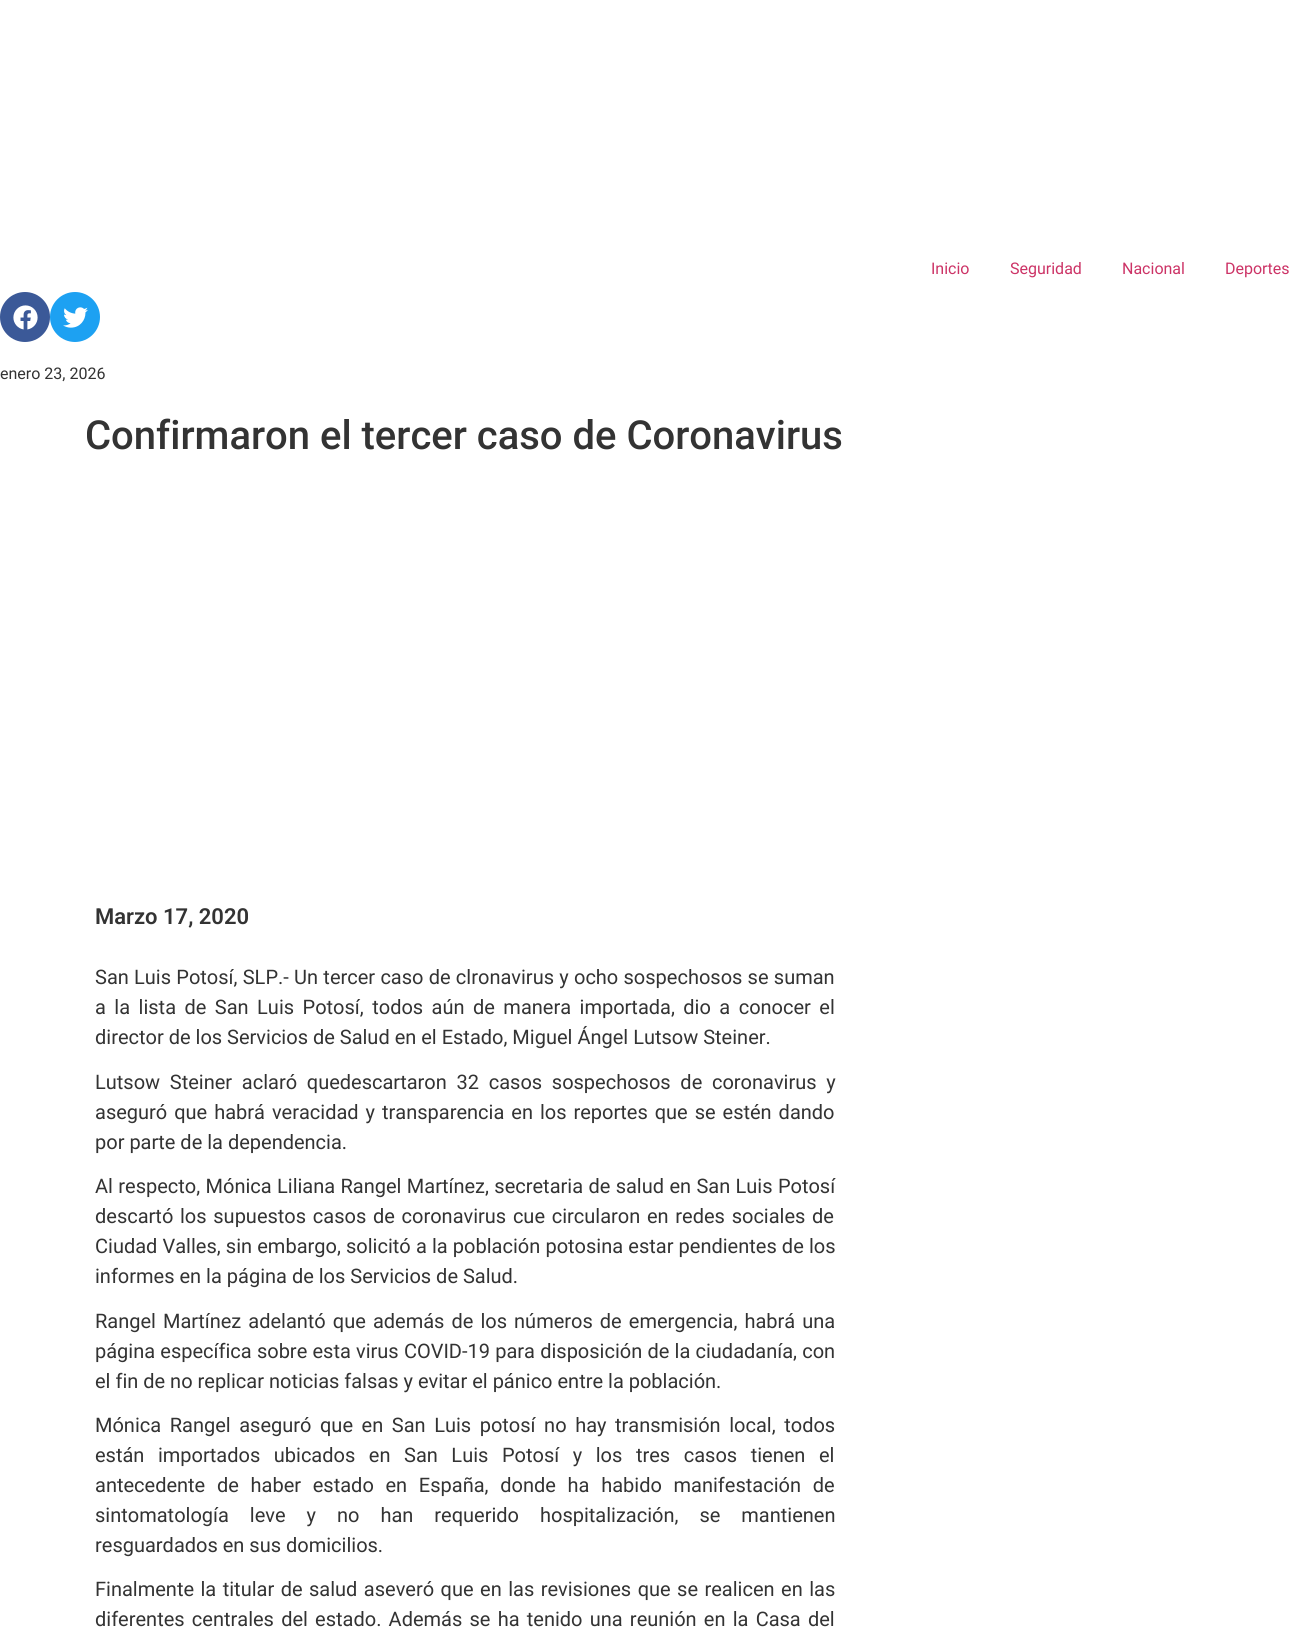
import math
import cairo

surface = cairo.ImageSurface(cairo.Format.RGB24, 1309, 1647)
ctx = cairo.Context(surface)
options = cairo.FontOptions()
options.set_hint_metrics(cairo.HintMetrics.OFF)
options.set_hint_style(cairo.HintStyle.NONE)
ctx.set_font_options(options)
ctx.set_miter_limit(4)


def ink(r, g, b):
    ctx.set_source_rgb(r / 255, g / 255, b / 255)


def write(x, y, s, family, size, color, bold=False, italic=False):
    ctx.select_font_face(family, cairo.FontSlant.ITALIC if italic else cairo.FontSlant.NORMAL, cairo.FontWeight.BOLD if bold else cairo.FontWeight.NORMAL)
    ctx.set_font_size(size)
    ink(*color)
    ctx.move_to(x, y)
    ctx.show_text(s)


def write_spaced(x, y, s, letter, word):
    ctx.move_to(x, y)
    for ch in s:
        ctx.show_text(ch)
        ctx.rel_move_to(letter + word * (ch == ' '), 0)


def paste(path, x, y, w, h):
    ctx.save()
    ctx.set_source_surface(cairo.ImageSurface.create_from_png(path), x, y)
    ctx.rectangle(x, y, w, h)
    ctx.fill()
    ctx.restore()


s1 = dict(family="Roboto", size=16, color=(204, 51, 102))
s2 = dict(family="Roboto", size=16, color=(51, 51, 51))
s3 = dict(family="Roboto Medium", size=40, color=(51, 51, 51))
s4 = dict(family="Roboto SemiBold", size=22, color=(51, 51, 51))
s5 = dict(family="Roboto", size=20, color=(51, 51, 51))

ink(255, 255, 255)
ctx.paint()
write(931, 274, "Inicio", **s1)
write(1010, 274, "Seguridad", **s1)
write(1122, 274, "Nacional", **s1)
write(1225, 274, "Deportes", **s1)
ink(59, 89, 152)
ctx.new_path()
ctx.arc(25, 317, 25, 0, 2 * math.pi)
ctx.fill()
paste("pic1.png", 13, 305, 25, 25)
ink(29, 161, 242)
ctx.arc(75, 317, 25, 0, 2 * math.pi)
ctx.fill()
paste("pic2.png", 63, 307, 25, 21)
write(0, 379, "enero 23, 2026", **s2)
write(85, 449, "Confirmaron el tercer caso de Coronavirus", **s3)
write(95, 924, "Marzo 17, 2020", **s4)
ctx.select_font_face("Roboto")
ctx.set_font_size(20)
write_spaced(95, 984, "San Luis Potosí, SLP.- Un tercer caso de clronavirus y ocho sospechosos se suman", 0, 0.3)
write_spaced(95, 1014, "a la lista de San Luis Potosí, todos aún de manera importada, dio a conocer el", 0, 3.5)
write(95, 1044, "director de los Servicios de Salud en el Estado, Miguel Ángel Lutsow Steiner.", **s5)
write_spaced(95, 1089, "Lutsow Steiner aclaró quedescartaron 32 casos sospechosos de coronavirus y", 0, 4.75)
write_spaced(95, 1119, "aseguró que habrá veracidad y transparencia en los reportes que se estén dando", 0, 2)
write(95, 1149, "por parte de la dependencia.", **s5)
write_spaced(95, 1193, "Al respecto, Mónica Liliana Rangel Martínez, secretaria de salud en San Luis Potosí", 0, 0.4)
write_spaced(95, 1223, "descartó los supuestos casos de coronavirus cue circularon en redes sociales de", 0, 1.75)
write_spaced(95, 1253, "Ciudad Valles, sin embargo, solicitó a la población potosina estar pendientes de los", 0, 0.2)
write(95, 1283, "informes en la página de los Servicios de Salud.", **s5)
write_spaced(95, 1328, "Rangel Martínez adelantó que además de los números de emergencia, habrá una", 0, 2.1)
write_spaced(95, 1358, "página específica sobre esta virus COVID-19 para disposición de la ciudadanía, con", 0, 0.25)
write(95, 1388, "el fin de no replicar noticias falsas y evitar el pánico entre la población.", **s5)
write_spaced(95, 1432, "Mónica Rangel aseguró que en San Luis potosí no hay transmisión local, todos", 0, 3.6)
write_spaced(95, 1462, "están importados ubicados en San Luis Potosí y los tres casos tienen el", 0, 8.6)
write_spaced(95, 1492, "antecedente de haber estado en España, donde ha habido manifestación de", 0, 6.75)
write_spaced(95, 1522, "sintomatología leve y no han requerido hospitalización, se mantienen", 0, 16)
write(95, 1552, "resguardados en sus domicilios.", **s5)
write_spaced(95, 1596, "Finalmente la titular de salud aseveró que en las revisiones que se realicen en las", 0, 1.5)
write_spaced(95, 1626, "diferentes centrales del estado. Además se ha tenido una reunión en la Casa del", 0, 2.25)
surface.write_to_png("screenshot.png")
